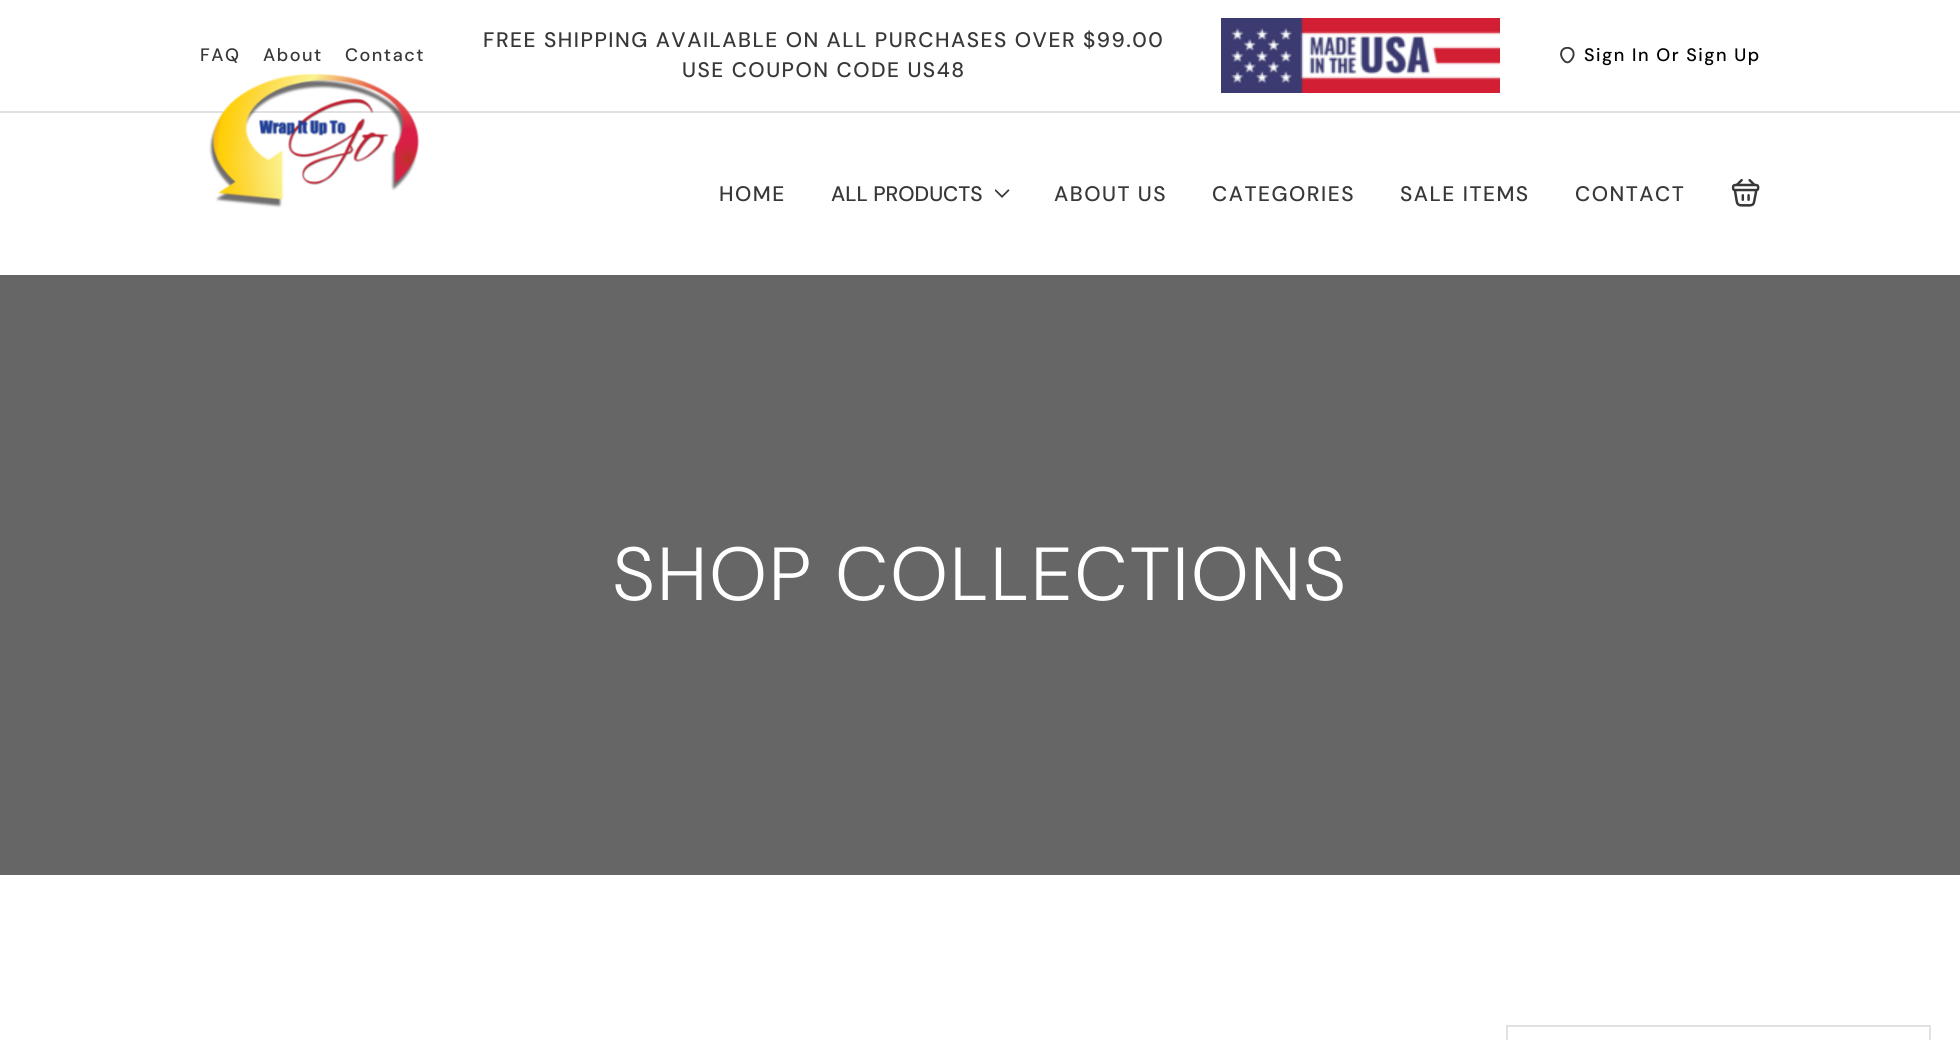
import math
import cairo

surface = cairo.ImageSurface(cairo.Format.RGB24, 1960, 1040)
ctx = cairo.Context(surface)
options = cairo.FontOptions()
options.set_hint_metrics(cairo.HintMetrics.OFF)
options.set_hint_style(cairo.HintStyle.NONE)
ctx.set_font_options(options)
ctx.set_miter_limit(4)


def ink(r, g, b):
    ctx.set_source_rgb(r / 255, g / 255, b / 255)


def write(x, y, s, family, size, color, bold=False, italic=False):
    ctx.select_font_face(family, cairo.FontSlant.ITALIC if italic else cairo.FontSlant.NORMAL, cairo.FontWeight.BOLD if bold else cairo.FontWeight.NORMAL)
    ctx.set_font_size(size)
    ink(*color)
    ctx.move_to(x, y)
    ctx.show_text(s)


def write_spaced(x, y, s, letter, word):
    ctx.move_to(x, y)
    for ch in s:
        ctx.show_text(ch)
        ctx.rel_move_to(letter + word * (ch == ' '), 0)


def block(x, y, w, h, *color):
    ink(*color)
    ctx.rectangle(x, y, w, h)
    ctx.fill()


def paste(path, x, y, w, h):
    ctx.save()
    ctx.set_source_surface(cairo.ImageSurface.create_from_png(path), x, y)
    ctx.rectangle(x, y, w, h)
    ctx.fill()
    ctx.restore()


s1 = dict(family="DM Sans Medium", size=21, color=(56, 55, 58))

ink(255, 255, 255)
ctx.paint()
block(0, 111, 1960, 2, 225, 225, 225)
ctx.select_font_face("DM Sans Medium")
ctx.set_font_size(18)
ink(56, 55, 58)
write_spaced(200, 61, "FAQ", 1.5, 0)
write_spaced(263, 61, "About", 1.5, 0)
write_spaced(345, 61, "Contact", 1.5, 0)
ctx.set_font_size(21)
write_spaced(483, 47, "FREE SHIPPING AVAILABLE ON ALL PURCHASES OVER $99.00", 1.5, 0)
write_spaced(682, 77, "USE COUPON CODE US48", 1.5, 0)
paste("pic1.png", 1221, 18, 279, 75)
paste("pic2.png", 1560, 47, 15, 17)
ctx.set_font_size(18)
ink(0, 0, 0)
write_spaced(1584, 61, "Sign In Or Sign Up", 1.5, 0)
paste("pic3.png", 209, 73, 211, 135)
ctx.set_font_size(21)
ink(56, 55, 58)
write_spaced(719, 201, "HOME", 1.5, 0)
write(831, 201, "ALL PRODUCTS", **s1)
paste("pic4.png", 995, 189, 15, 9)
write_spaced(1054, 201, "ABOUT US", 1.5, 0)
write_spaced(1212, 201, "CATEGORIES", 1.5, 0)
write_spaced(1400, 201, "SALE ITEMS", 1.5, 0)
write_spaced(1575, 201, "CONTACT", 1.5, 0)
paste("pic5.png", 1731, 179, 29, 28)
block(0, 275, 1960, 600, 102, 102, 102)
ctx.select_font_face("DM Sans Light")
ctx.set_font_size(75)
ink(255, 255, 255)
write_spaced(612, 600, "SHOP COLLECTIONS", 1.5, 0)
ctx.rectangle(1507, 1026, 423, 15)
ink(225, 225, 225)
ctx.stroke()
surface.write_to_png("screenshot.png")
